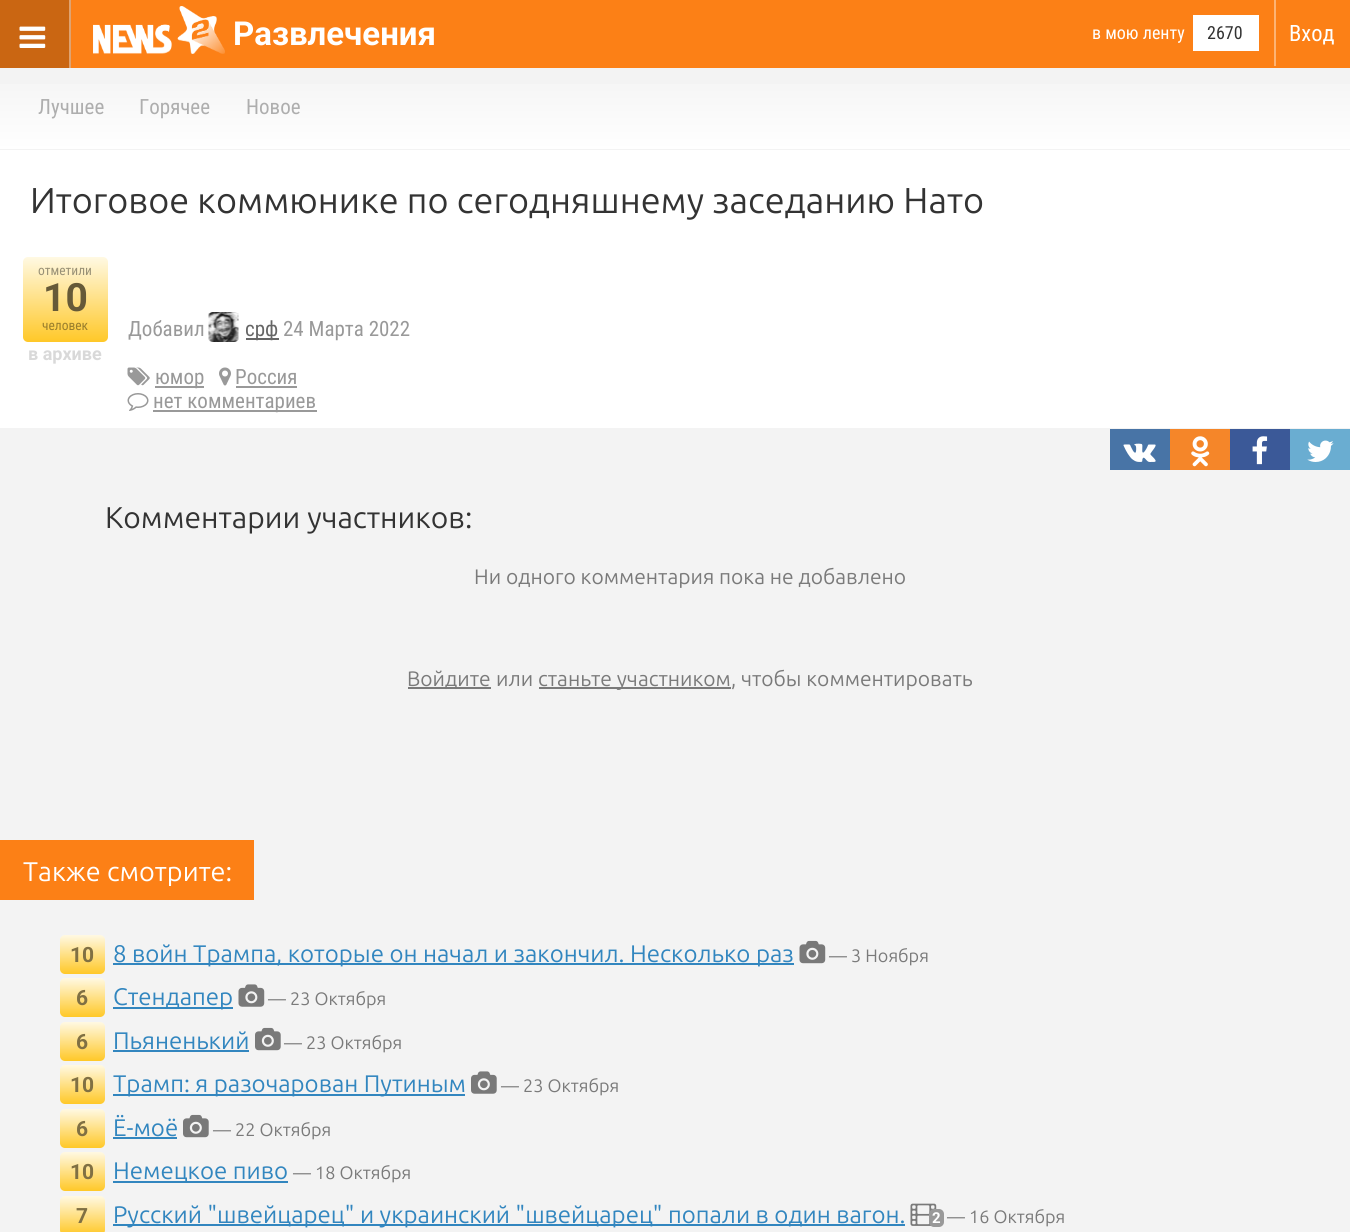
import math
import cairo

surface = cairo.ImageSurface(cairo.Format.RGB24, 1350, 1232)
ctx = cairo.Context(surface)
options = cairo.FontOptions()
options.set_hint_metrics(cairo.HintMetrics.OFF)
options.set_hint_style(cairo.HintStyle.NONE)
ctx.set_font_options(options)
ctx.set_miter_limit(4)


def ink(r, g, b):
    ctx.set_source_rgb(r / 255, g / 255, b / 255)


def write(x, y, s, family, size, color, bold=False, italic=False):
    ctx.select_font_face(family, cairo.FontSlant.ITALIC if italic else cairo.FontSlant.NORMAL, cairo.FontWeight.BOLD if bold else cairo.FontWeight.NORMAL)
    ctx.set_font_size(size)
    ink(*color)
    ctx.move_to(x, y)
    ctx.show_text(s)


def block(x, y, w, h, *color):
    ink(*color)
    ctx.rectangle(x, y, w, h)
    ctx.fill()


def round_path(x, y, w, h, r):
    ctx.new_sub_path()
    for i, (u, v) in enumerate([(x + w - r, y + h - r), (x + r, y + h - r), (x + r, y + r), (x + w - r, y + r)]):
        ctx.arc(u, v, r, i * math.pi / 2, (i + 1) * math.pi / 2)
    ctx.close_path()


def paste(path, x, y, w, h):
    ctx.save()
    ctx.set_source_surface(cairo.ImageSurface.create_from_png(path), x, y)
    ctx.rectangle(x, y, w, h)
    ctx.fill()
    ctx.restore()


s1 = dict(family="Roboto", size=33, color=(255, 255, 255), bold=True)
s2 = dict(family="Roboto Condensed", size=18, color=(255, 255, 255))
s3 = dict(family="Roboto Condensed", size=18, color=(51, 51, 51))
s4 = dict(family="Roboto Condensed", size=22.5, color=(255, 255, 255))
s5 = dict(family="Roboto Condensed", size=21, color=(174, 174, 174))
s6 = dict(family="Ubuntu", size=36, color=(51, 51, 51))
s7 = dict(family="Roboto Condensed", size=13.5, color=(153, 145, 118))
s8 = dict(family="Roboto", size=39, color=(102, 90, 56), bold=True)
s9 = dict(family="Roboto Condensed", size=13.5, color=(153, 126, 45))
s10 = dict(family="Roboto", size=18, color=(217, 217, 217), bold=True)
s11 = dict(family="Roboto Condensed", size=21, color=(153, 153, 153))
s12 = dict(family="Roboto Condensed", size=21, color=(102, 102, 102))
s13 = dict(family="Ubuntu", size=30, color=(51, 51, 51))
s14 = dict(family="Ubuntu", size=21, color=(122, 122, 122))
s15 = dict(family="Ubuntu", size=27, color=(255, 255, 255))
s16 = dict(family="Roboto", size=21, color=(128, 112, 67), bold=True)
s17 = dict(family="Ubuntu", size=24, color=(50, 134, 191))
s18 = dict(family="Ubuntu", size=18, color=(122, 122, 122))
s19 = dict(family="Roboto", size=15, color=(255, 255, 255), bold=True)

ink(243, 243, 243)
ctx.paint()
block(71, 0, 1279, 68, 252, 128, 22)
block(0, 0, 69, 68, 202, 102, 18)
block(69, 0, 2, 68, 223, 163, 113)
paste("pic1.png", 19, 26, 27, 22)
paste("pic2.png", 93, 6, 132, 48)
write(233, 45, "Развлечения", **s1)
write(1092, 39, "в мою ленту", **s2)
block(1193, 15, 66, 36, 255, 255, 255)
write(1207, 39, "2670", **s3)
block(1274, 0, 2, 66, 253, 179, 115)
write(1289, 41, "Вход", **s4)
gradient = cairo.LinearGradient(675, 67, 675, 149)
gradient.add_color_stop_rgba(0, 0.953, 0.953, 0.953, 1)
gradient.add_color_stop_rgba(1, 1, 1, 1, 1)
ctx.set_source(gradient)
ctx.rectangle(0, 84, 1350, 65)
ctx.fill()
write(38, 114, "Лучшее", **s5)
write(139, 114, "Горячее", **s5)
write(246, 114, "Новое", **s5)
block(0, 150, 1350, 278, 255, 255, 255)
write(30, 213, "Итоговое коммюнике по сегодняшнему заседанию Нато", **s6)
gradient = cairo.LinearGradient(65, 257, 65, 342)
gradient.add_color_stop_rgba(0, 1, 0.976, 0.89, 1)
gradient.add_color_stop_rgba(1, 1, 0.784, 0.157, 1)
ctx.set_source(gradient)
round_path(23, 257, 85, 85, 5)
ctx.fill()
write(38, 275, "отметили", **s7)
write(43, 311, "10", **s8)
write(42, 330, "человек", **s9)
write(28, 360, "в архиве", **s10)
write(128, 336, "Добавил", **s11)
paste("pic3.png", 208, 312, 31, 30)
block(246, 338, 33, 2, 102, 102, 102)
write(245, 336, "срф", **s12)
write(283, 336, "24 Марта 2022", **s11)
paste("pic4.png", 127, 367, 23, 19)
block(155, 386, 49, 2, 153, 153, 153)
write(155, 384, "юмор", **s11)
paste("pic5.png", 219, 367, 12, 19)
write(235, 384, "Россия", **s11)
block(236, 386, 61, 2, 153, 153, 153)
paste("pic6.png", 127, 393, 22, 18)
block(153, 410, 164, 2, 153, 153, 153)
write(153, 408, "нет комментариев", **s11)
block(1110, 429, 60, 41, 72, 116, 166)
paste("pic7.png", 1123, 443, 33, 19)
block(1170, 429, 60, 41, 245, 134, 41)
paste("pic8.png", 1191, 436, 19, 31)
block(1230, 429, 60, 41, 59, 89, 152)
paste("pic9.png", 1252, 436, 16, 29)
block(1290, 429, 60, 41, 106, 173, 209)
paste("pic10.png", 1307, 440, 27, 22)
write(105, 528, "Комментарии участников:", **s13)
write(474, 584, "Ни одного комментария пока не добавлено", **s14)
block(408, 687, 83, 2, 122, 122, 122)
write(407, 686, "Войдите", **s14)
write(496, 686, "или", **s14)
block(539, 687, 192, 2, 122, 122, 122)
write(538, 686, "станьте участником", **s14)
write(731, 686, ", чтобы комментировать", **s14)
block(0, 840, 254, 60, 252, 128, 22)
write(23, 881, "Также смотрите:", **s15)
gradient = cairo.LinearGradient(83, 935, 83, 974)
gradient.add_color_stop_rgba(0, 1, 0.976, 0.89, 1)
gradient.add_color_stop_rgba(1, 1, 0.784, 0.157, 1)
ctx.set_source(gradient)
round_path(60, 935, 45, 39, 5)
ctx.fill()
write(70, 962, "10", **s16)
block(113, 963, 681, 2, 50, 134, 191)
write(113, 962, "8 войн Трампа, которые он начал и закончил. Несколько раз", **s17)
paste("pic11.png", 799, 940, 27, 24)
write(829, 962, "— 3 Ноября", **s18)
gradient = cairo.LinearGradient(83, 978, 83, 1017)
gradient.add_color_stop_rgba(0, 1, 0.976, 0.89, 1)
gradient.add_color_stop_rgba(1, 1, 0.784, 0.157, 1)
ctx.set_source(gradient)
round_path(60, 978, 45, 39, 5)
ctx.fill()
write(76, 1005, "6", **s16)
block(113, 1007, 120, 2, 50, 134, 191)
write(113, 1005, "Стендапер", **s17)
paste("pic12.png", 238, 984, 27, 23)
write(268, 1005, "— 23 Октября", **s18)
gradient = cairo.LinearGradient(83, 1022, 83, 1061)
gradient.add_color_stop_rgba(0, 1, 0.976, 0.89, 1)
gradient.add_color_stop_rgba(1, 1, 0.784, 0.157, 1)
ctx.set_source(gradient)
round_path(60, 1022, 45, 39, 5)
ctx.fill()
write(76, 1049, "6", **s16)
write(113, 1049, "Пьяненький", **s17)
block(113, 1050, 136, 2, 50, 134, 191)
paste("pic13.png", 255, 1027, 26, 24)
write(284, 1049, "— 23 Октября", **s18)
gradient = cairo.LinearGradient(83, 1065, 83, 1104)
gradient.add_color_stop_rgba(0, 1, 0.976, 0.89, 1)
gradient.add_color_stop_rgba(1, 1, 0.784, 0.157, 1)
ctx.set_source(gradient)
round_path(60, 1065, 45, 39, 5)
ctx.fill()
write(70, 1092, "10", **s16)
block(113, 1094, 352, 2, 50, 134, 191)
write(113, 1092, "Трамп: я разочарован Путиным", **s17)
paste("pic14.png", 471, 1071, 26, 23)
write(501, 1092, "— 23 Октября", **s18)
gradient = cairo.LinearGradient(83, 1109, 83, 1148)
gradient.add_color_stop_rgba(0, 1, 0.976, 0.89, 1)
gradient.add_color_stop_rgba(1, 1, 0.784, 0.157, 1)
ctx.set_source(gradient)
round_path(60, 1109, 45, 39, 5)
ctx.fill()
write(76, 1136, "6", **s16)
write(113, 1136, "Ё-моё", **s17)
block(113, 1137, 64, 2, 50, 134, 191)
paste("pic13.png", 183, 1114, 26, 24)
write(213, 1136, "— 22 Октября", **s18)
gradient = cairo.LinearGradient(83, 1152, 83, 1191)
gradient.add_color_stop_rgba(0, 1, 0.976, 0.89, 1)
gradient.add_color_stop_rgba(1, 1, 0.784, 0.157, 1)
ctx.set_source(gradient)
round_path(60, 1152, 45, 39, 5)
ctx.fill()
write(70, 1179, "10", **s16)
block(113, 1181, 175, 2, 50, 134, 191)
write(113, 1179, "Немецкое пиво", **s17)
write(293, 1179, "— 18 Октября", **s18)
gradient = cairo.LinearGradient(83, 1196, 83, 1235)
gradient.add_color_stop_rgba(0, 1, 0.976, 0.89, 1)
gradient.add_color_stop_rgba(1, 1, 0.784, 0.157, 1)
ctx.set_source(gradient)
round_path(60, 1196, 45, 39, 5)
ctx.fill()
write(76, 1223, "7", **s16)
block(113, 1224, 792, 2, 50, 134, 191)
write(113, 1223, "Русский \"швейцарец\" и украинский \"швейцарец\" попали в один вагон.", **s17)
paste("pic15.png", 910, 1203, 27, 23)
ink(153, 153, 153)
round_path(929, 1209, 15, 18, 5)
ctx.fill()
write(932, 1223, "2", **s19)
write(947, 1223, "— 16 Октября", **s18)
surface.write_to_png("screenshot.png")
